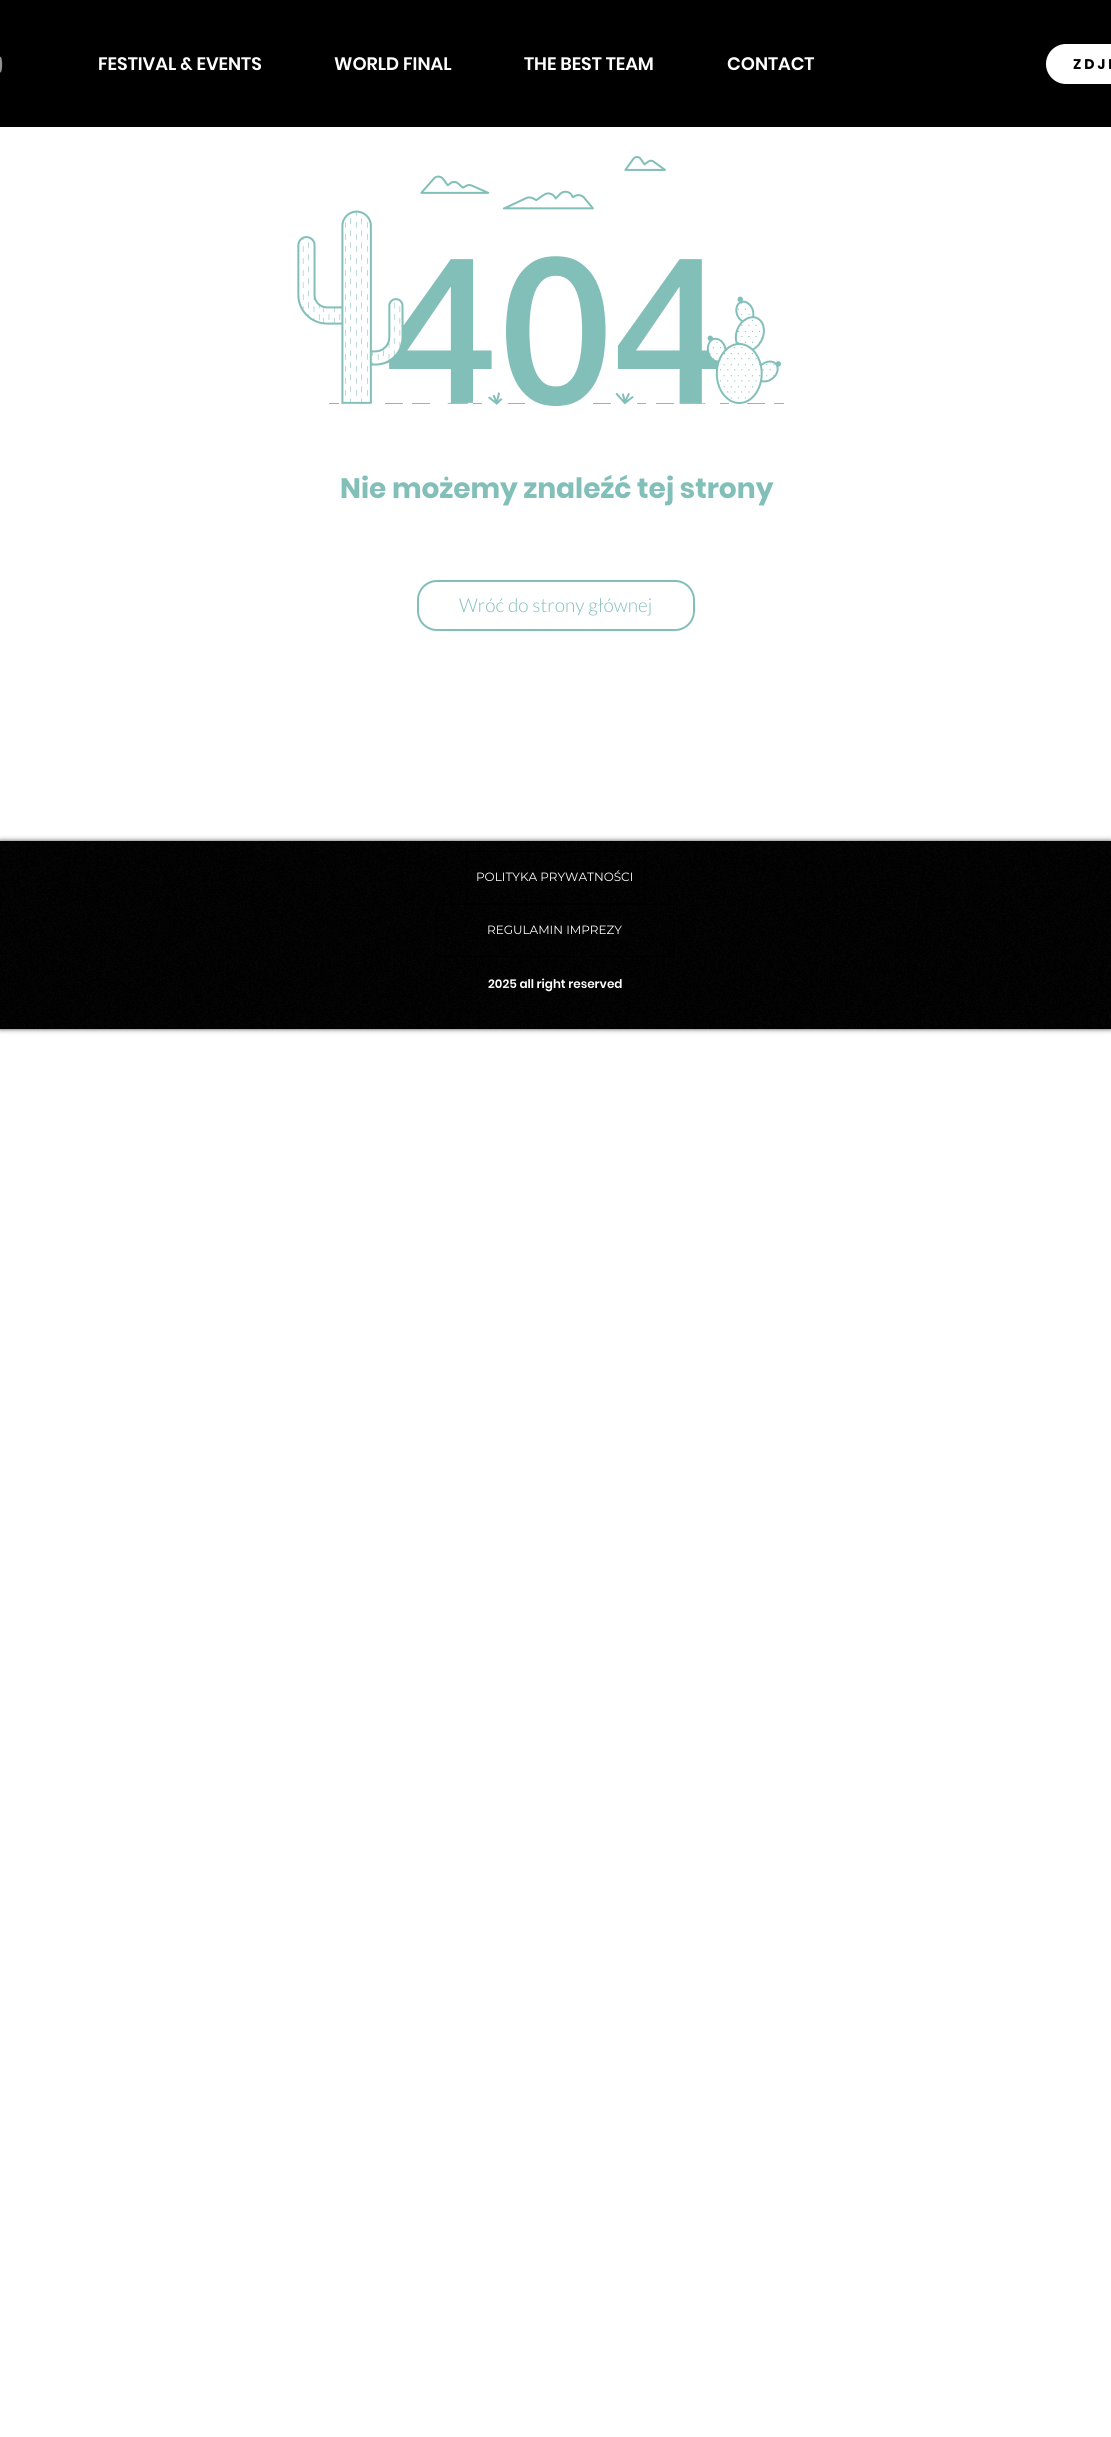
import math
import cairo

surface = cairo.ImageSurface(cairo.Format.RGB24, 1111, 2437)
ctx = cairo.Context(surface)
options = cairo.FontOptions()
options.set_hint_metrics(cairo.HintMetrics.OFF)
options.set_hint_style(cairo.HintStyle.NONE)
ctx.set_font_options(options)
ctx.set_miter_limit(4)


def ink(r, g, b):
    ctx.set_source_rgb(r / 255, g / 255, b / 255)


def write(x, y, s, family, size, color, bold=False, italic=False):
    ctx.select_font_face(family, cairo.FontSlant.ITALIC if italic else cairo.FontSlant.NORMAL, cairo.FontWeight.BOLD if bold else cairo.FontWeight.NORMAL)
    ctx.set_font_size(size)
    ink(*color)
    ctx.move_to(x, y)
    ctx.show_text(s)


def write_spaced(x, y, s, letter, word):
    ctx.move_to(x, y)
    for ch in s:
        ctx.show_text(ch)
        ctx.rel_move_to(letter + word * (ch == ' '), 0)


def block(x, y, w, h, *color):
    ink(*color)
    ctx.rectangle(x, y, w, h)
    ctx.fill()


def round_path(x, y, w, h, r):
    ctx.new_sub_path()
    for i, (u, v) in enumerate([(x + w - r, y + h - r), (x + r, y + h - r), (x + r, y + r), (x + w - r, y + r)]):
        ctx.arc(u, v, r, i * math.pi / 2, (i + 1) * math.pi / 2)
    ctx.close_path()


def blur_box(x, y, w, h, r, blur, alpha):
    ctx.push_group_with_content(cairo.Content.ALPHA)
    ctx.set_operator(cairo.Operator.SOURCE)
    for i in range(15, -16, -2):
        e = blur * i / 6
        if min(w, h) + 2 * e > 0:
            ctx.set_source_rgba(0, 0, 0, alpha * math.erfc((i - 1) / 8.5) / 2)
            round_path(x - e, y - e, w + 2 * e, h + 2 * e, max(0, min(r + e + blur * .6, min(w, h) / 2 + e)))
            ctx.fill()
    ctx.mask(ctx.pop_group())


def paste(path, x, y, w, h):
    ctx.save()
    ctx.set_source_surface(cairo.ImageSurface.create_from_png(path), x, y)
    ctx.rectangle(x, y, w, h)
    ctx.fill()
    ctx.restore()


s1 = dict(family="Poppins SemiBold", size=18, color=(255, 255, 254))
s2 = dict(family="Poppins", size=28, color=(130, 191, 184), bold=True)
s3 = dict(family="Lato Light", size=19, color=(130, 191, 184))
s4 = dict(family="Montserrat", size=12, color=(255, 255, 254))
s5 = dict(family="Poppins SemiBold", size=12, color=(255, 255, 254))

ink(255, 255, 255)
ctx.paint()
block(0, 0, 1111, 127, 0, 0, 0)
paste("pic1.png", 0, 56, 3, 17)
write(98, 70, "FESTIVAL & EVENTS", **s1)
write(334, 70, "WORLD FINAL", **s1)
write(524, 70, "THE BEST TEAM", **s1)
write(727, 70, "CONTACT", **s1)
ink(255, 255, 255)
round_path(1046, 44, 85, 40, 20)
ctx.fill()
ctx.select_font_face("Poppins", cairo.FontSlant.NORMAL, cairo.FontWeight.BOLD)
ctx.set_font_size(14)
ink(0, 0, 0)
write_spaced(1073, 69, "ZDJĘ", 3, 0)
paste("pic2.png", 297, 156, 487, 250)
write(340, 498, "Nie możemy znaleźć tej strony", **s2)
round_path(418, 581, 276, 49, 19)
ctx.stroke()
write(459, 612, "Wróć do strony głównej", **s3)
ink(0, 0, 0)
blur_box(0, 841, 1111, 188, 0, 2.5, 0.7)
block(0, 841, 1111, 188, 0, 0, 0)
paste("pic3.png", 0, 841, 1111, 188)
ctx.rectangle(466.5, 851.5, 178, 52)
ctx.set_line_width(1)
ctx.stroke()
write(476, 881, "POLITYKA PRYWATNOŚCI", **s4)
ctx.rectangle(436.5, 904.5, 237, 52)
ink(0, 0, 0)
ctx.stroke()
write(487, 934, "REGULAMIN IMPREZY", **s4)
write(488, 988, "2025 all right reserved", **s5)
surface.write_to_png("screenshot.png")
